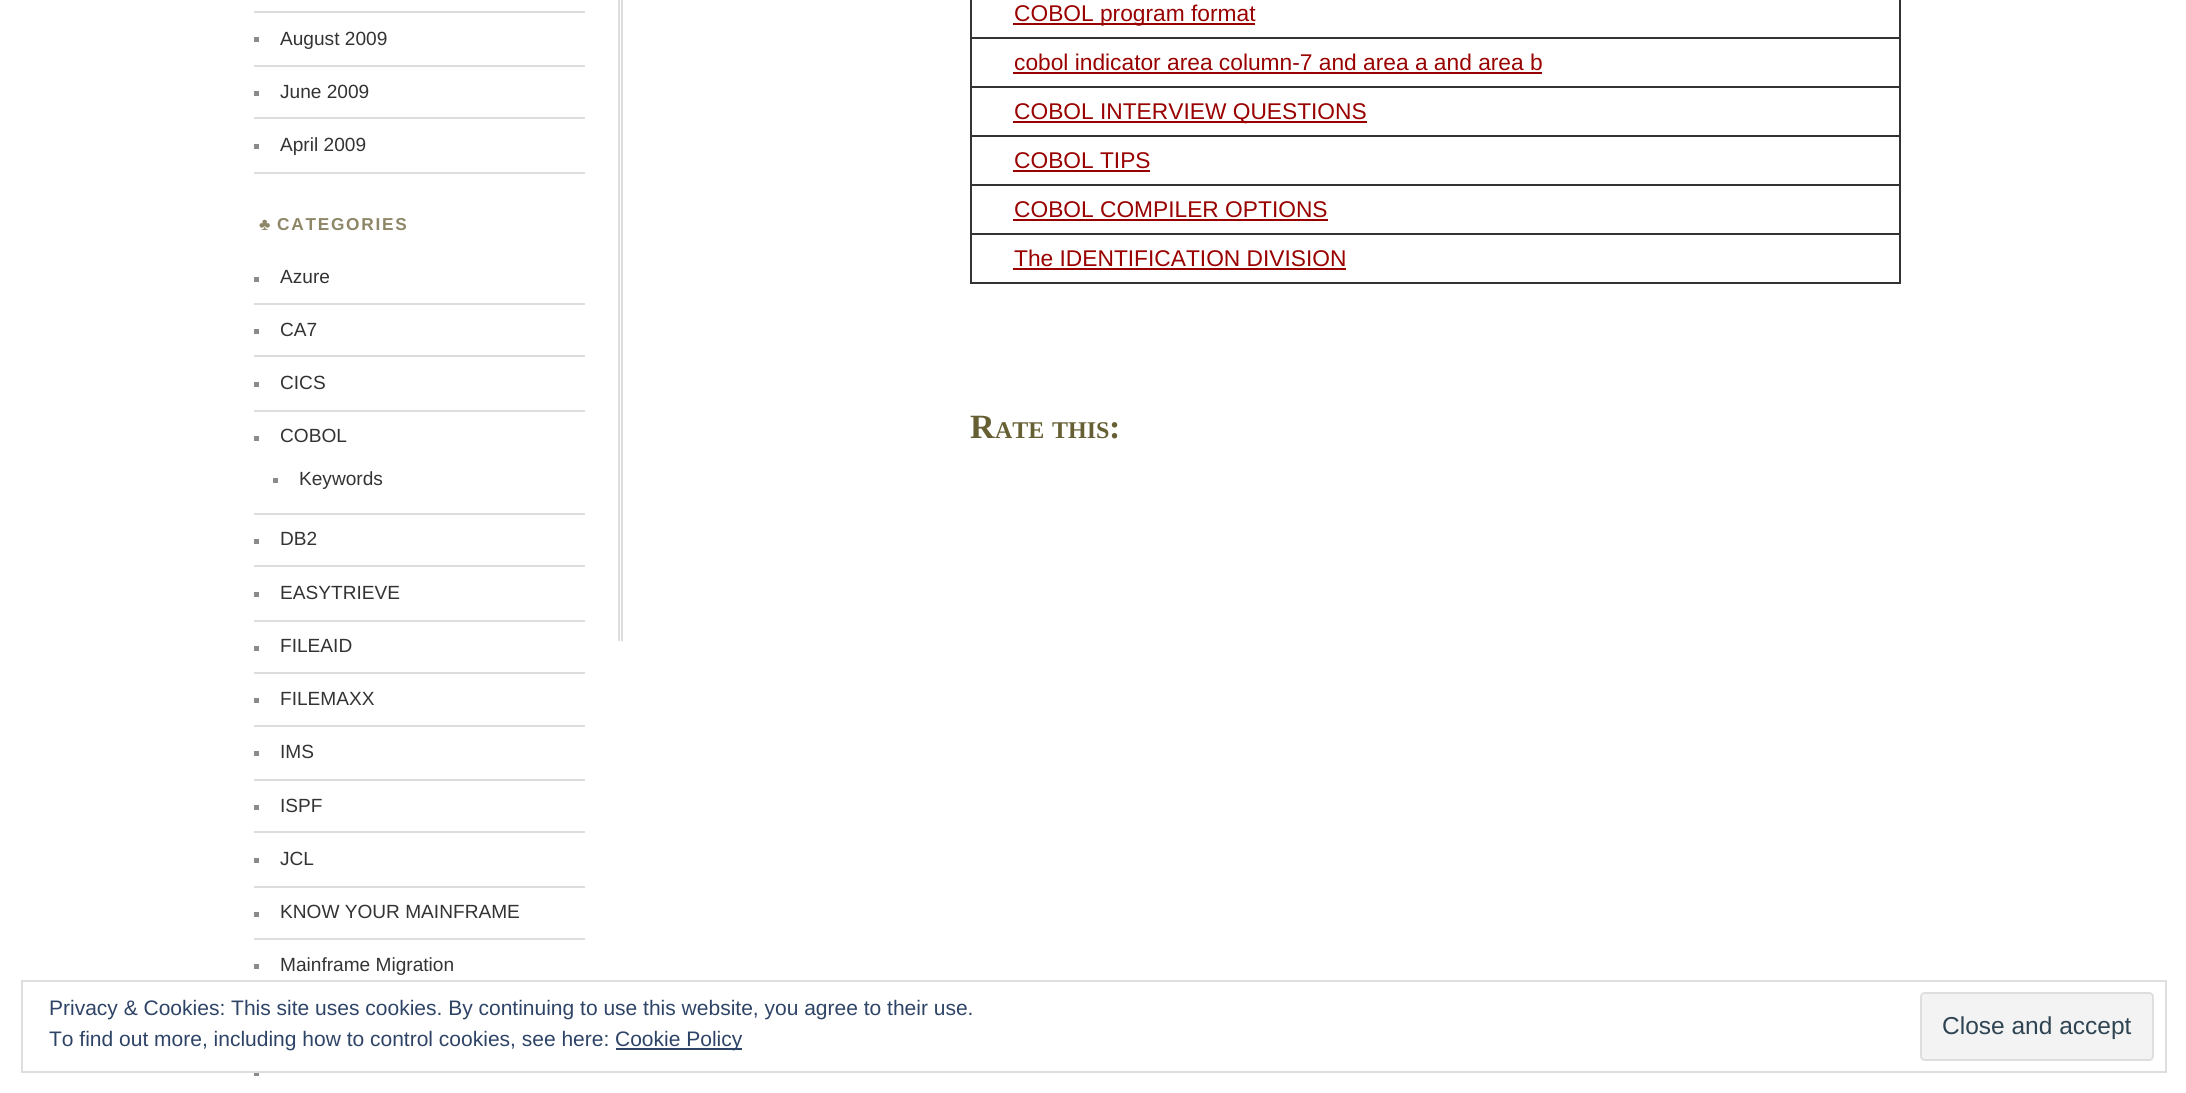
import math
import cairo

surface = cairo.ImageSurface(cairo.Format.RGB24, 2186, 1093)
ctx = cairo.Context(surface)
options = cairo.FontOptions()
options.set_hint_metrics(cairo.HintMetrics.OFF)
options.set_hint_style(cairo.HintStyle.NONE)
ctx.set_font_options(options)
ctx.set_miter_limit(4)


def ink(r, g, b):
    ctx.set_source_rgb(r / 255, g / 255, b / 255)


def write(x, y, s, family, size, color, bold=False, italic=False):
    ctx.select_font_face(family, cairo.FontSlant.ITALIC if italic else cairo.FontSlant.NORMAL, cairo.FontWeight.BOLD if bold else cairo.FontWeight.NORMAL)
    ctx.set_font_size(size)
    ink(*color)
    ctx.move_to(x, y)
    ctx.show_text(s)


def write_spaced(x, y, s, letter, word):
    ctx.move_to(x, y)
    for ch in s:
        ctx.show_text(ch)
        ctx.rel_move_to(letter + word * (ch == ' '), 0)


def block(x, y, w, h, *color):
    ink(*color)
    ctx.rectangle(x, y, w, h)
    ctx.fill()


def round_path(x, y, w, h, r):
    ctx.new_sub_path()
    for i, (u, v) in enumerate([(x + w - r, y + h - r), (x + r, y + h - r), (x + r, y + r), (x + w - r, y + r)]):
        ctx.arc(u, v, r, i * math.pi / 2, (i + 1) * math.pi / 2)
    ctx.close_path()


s1 = dict(family="Liberation Sans", size=19.1, color=(51, 51, 51))
s2 = dict(family="Liberation Sans", size=22.75, color=(153, 0, 0))
s3 = dict(family="Liberation Serif", size=34, color=(103, 95, 52), bold=True)
s4 = dict(family="Liberation Serif", size=24, color=(103, 95, 52), bold=True)
s5 = dict(family="Liberation Sans", size=21, color=(46, 68, 103))
s6 = dict(family="Liberation Sans", size=24.5, color=(46, 68, 83))

ink(255, 255, 255)
ctx.paint()
block(254, 11, 331, 2, 221, 221, 221)
block(254, 65, 331, 2, 221, 221, 221)
block(254, 37, 5, 5, 140, 139, 139)
write(280, 45, "August 2009", **s1)
block(254, 117, 331, 2, 221, 221, 221)
block(254, 91, 5, 5, 140, 139, 139)
write(280, 98, "June 2009", **s1)
block(254, 172, 331, 2, 221, 221, 221)
block(254, 144, 5, 5, 140, 139, 139)
write(280, 151, "April 2009", **s1)
ctx.select_font_face("Liberation Sans", cairo.FontSlant.NORMAL, cairo.FontWeight.BOLD)
ctx.set_font_size(17.25)
ink(141, 135, 103)
write_spaced(259, 230, "♣", 1.75, 0)
write_spaced(277, 230, "CATEGORIES", 1.75, 0)
block(254, 303, 331, 2, 221, 221, 221)
block(254, 277, 5, 5, 140, 139, 139)
write(280, 283, "Azure", **s1)
block(254, 355, 331, 2, 221, 221, 221)
block(254, 329, 5, 5, 140, 139, 139)
write(280, 336, "CA7", **s1)
block(254, 410, 331, 2, 221, 221, 221)
block(254, 382, 5, 5, 140, 139, 139)
write(280, 389, "CICS", **s1)
block(254, 513, 331, 2, 221, 221, 221)
block(254, 436, 5, 5, 140, 139, 139)
write(280, 442, "COBOL", **s1)
block(273, 478, 5, 5, 140, 139, 139)
write(299, 485, "Keywords", **s1)
block(254, 565, 331, 2, 221, 221, 221)
block(254, 539, 5, 5, 140, 139, 139)
write(280, 545, "DB2", **s1)
block(254, 620, 331, 2, 221, 221, 221)
block(254, 592, 5, 5, 140, 139, 139)
write(280, 599, "EASYTRIEVE", **s1)
block(254, 672, 331, 2, 221, 221, 221)
block(254, 646, 5, 5, 140, 139, 139)
write(280, 652, "FILEAID", **s1)
block(254, 725, 331, 2, 221, 221, 221)
block(254, 698, 5, 5, 140, 139, 139)
write(280, 705, "FILEMAXX", **s1)
block(254, 779, 331, 2, 221, 221, 221)
block(254, 751, 5, 5, 140, 139, 139)
write(280, 758, "IMS", **s1)
block(254, 831, 331, 2, 221, 221, 221)
block(254, 805, 5, 5, 140, 139, 139)
write(280, 812, "ISPF", **s1)
block(254, 886, 331, 2, 221, 221, 221)
block(254, 858, 5, 5, 140, 139, 139)
write(280, 865, "JCL", **s1)
block(254, 938, 331, 2, 221, 221, 221)
block(254, 912, 5, 5, 140, 139, 139)
write(280, 918, "KNOW YOUR MAINFRAME", **s1)
block(254, 964, 5, 5, 140, 139, 139)
write(280, 971, "Mainframe Migration", **s1)
block(254, 1073, 5, 3, 140, 139, 139)
block(618, 0, 2, 641, 221, 221, 221)
block(621, 0, 2, 641, 221, 221, 221)
block(1899, 0, 2, 284, 51, 51, 51)
block(970, 282, 931, 2, 51, 51, 51)
block(970, 233, 2, 51, 51, 51, 51)
block(970, 233, 931, 2, 51, 51, 51)
block(970, 184, 2, 51, 51, 51, 51)
block(970, 184, 931, 2, 51, 51, 51)
block(970, 135, 2, 51, 51, 51, 51)
block(970, 135, 931, 2, 51, 51, 51)
block(970, 86, 2, 51, 51, 51, 51)
block(970, 86, 931, 2, 51, 51, 51)
block(970, 37, 2, 51, 51, 51, 51)
block(970, 37, 931, 2, 51, 51, 51)
block(970, 0, 2, 39, 51, 51, 51)
block(1013, 23, 242, 2, 153, 0, 0)
write(1014, 21, "COBOL program format", **s2)
write(1014, 70, "cobol indicator area column-7 and area a and area b", **s2)
block(1013, 72, 529, 2, 153, 0, 0)
block(1013, 121, 354, 2, 153, 0, 0)
write(1014, 119, "COBOL INTERVIEW QUESTIONS", **s2)
write(1014, 168, "COBOL TIPS", **s2)
block(1013, 170, 137, 2, 153, 0, 0)
write(1014, 217, "COBOL COMPILER OPTIONS", **s2)
block(1013, 219, 315, 2, 153, 0, 0)
write(1014, 266, "The IDENTIFICATION DIVISION", **s2)
block(1013, 268, 333, 2, 153, 0, 0)
write(970, 438, "R", **s3)
write(995, 438, "ATE", **s4)
write(1052, 438, "THIS", **s4)
write(1109, 438, ":", **s3)
ctx.rectangle(22, 981, 2144, 91)
ink(222, 222, 222)
ctx.stroke()
write(49, 1015, "Privacy & Cookies: This site uses cookies. By continuing to use this website, you agree to their use.", **s5)
write(49, 1046, "To find out more, including how to control cookies, see here:", **s5)
block(616, 1048, 126, 2, 46, 68, 103)
write(615, 1046, "Cookie Policy", **s5)
ink(243, 243, 243)
round_path(1921, 993, 232, 67, 4)
ctx.fill_preserve()
ink(222, 222, 222)
ctx.stroke()
write(1942, 1034, "Close and accept", **s6)
surface.write_to_png("screenshot.png")
